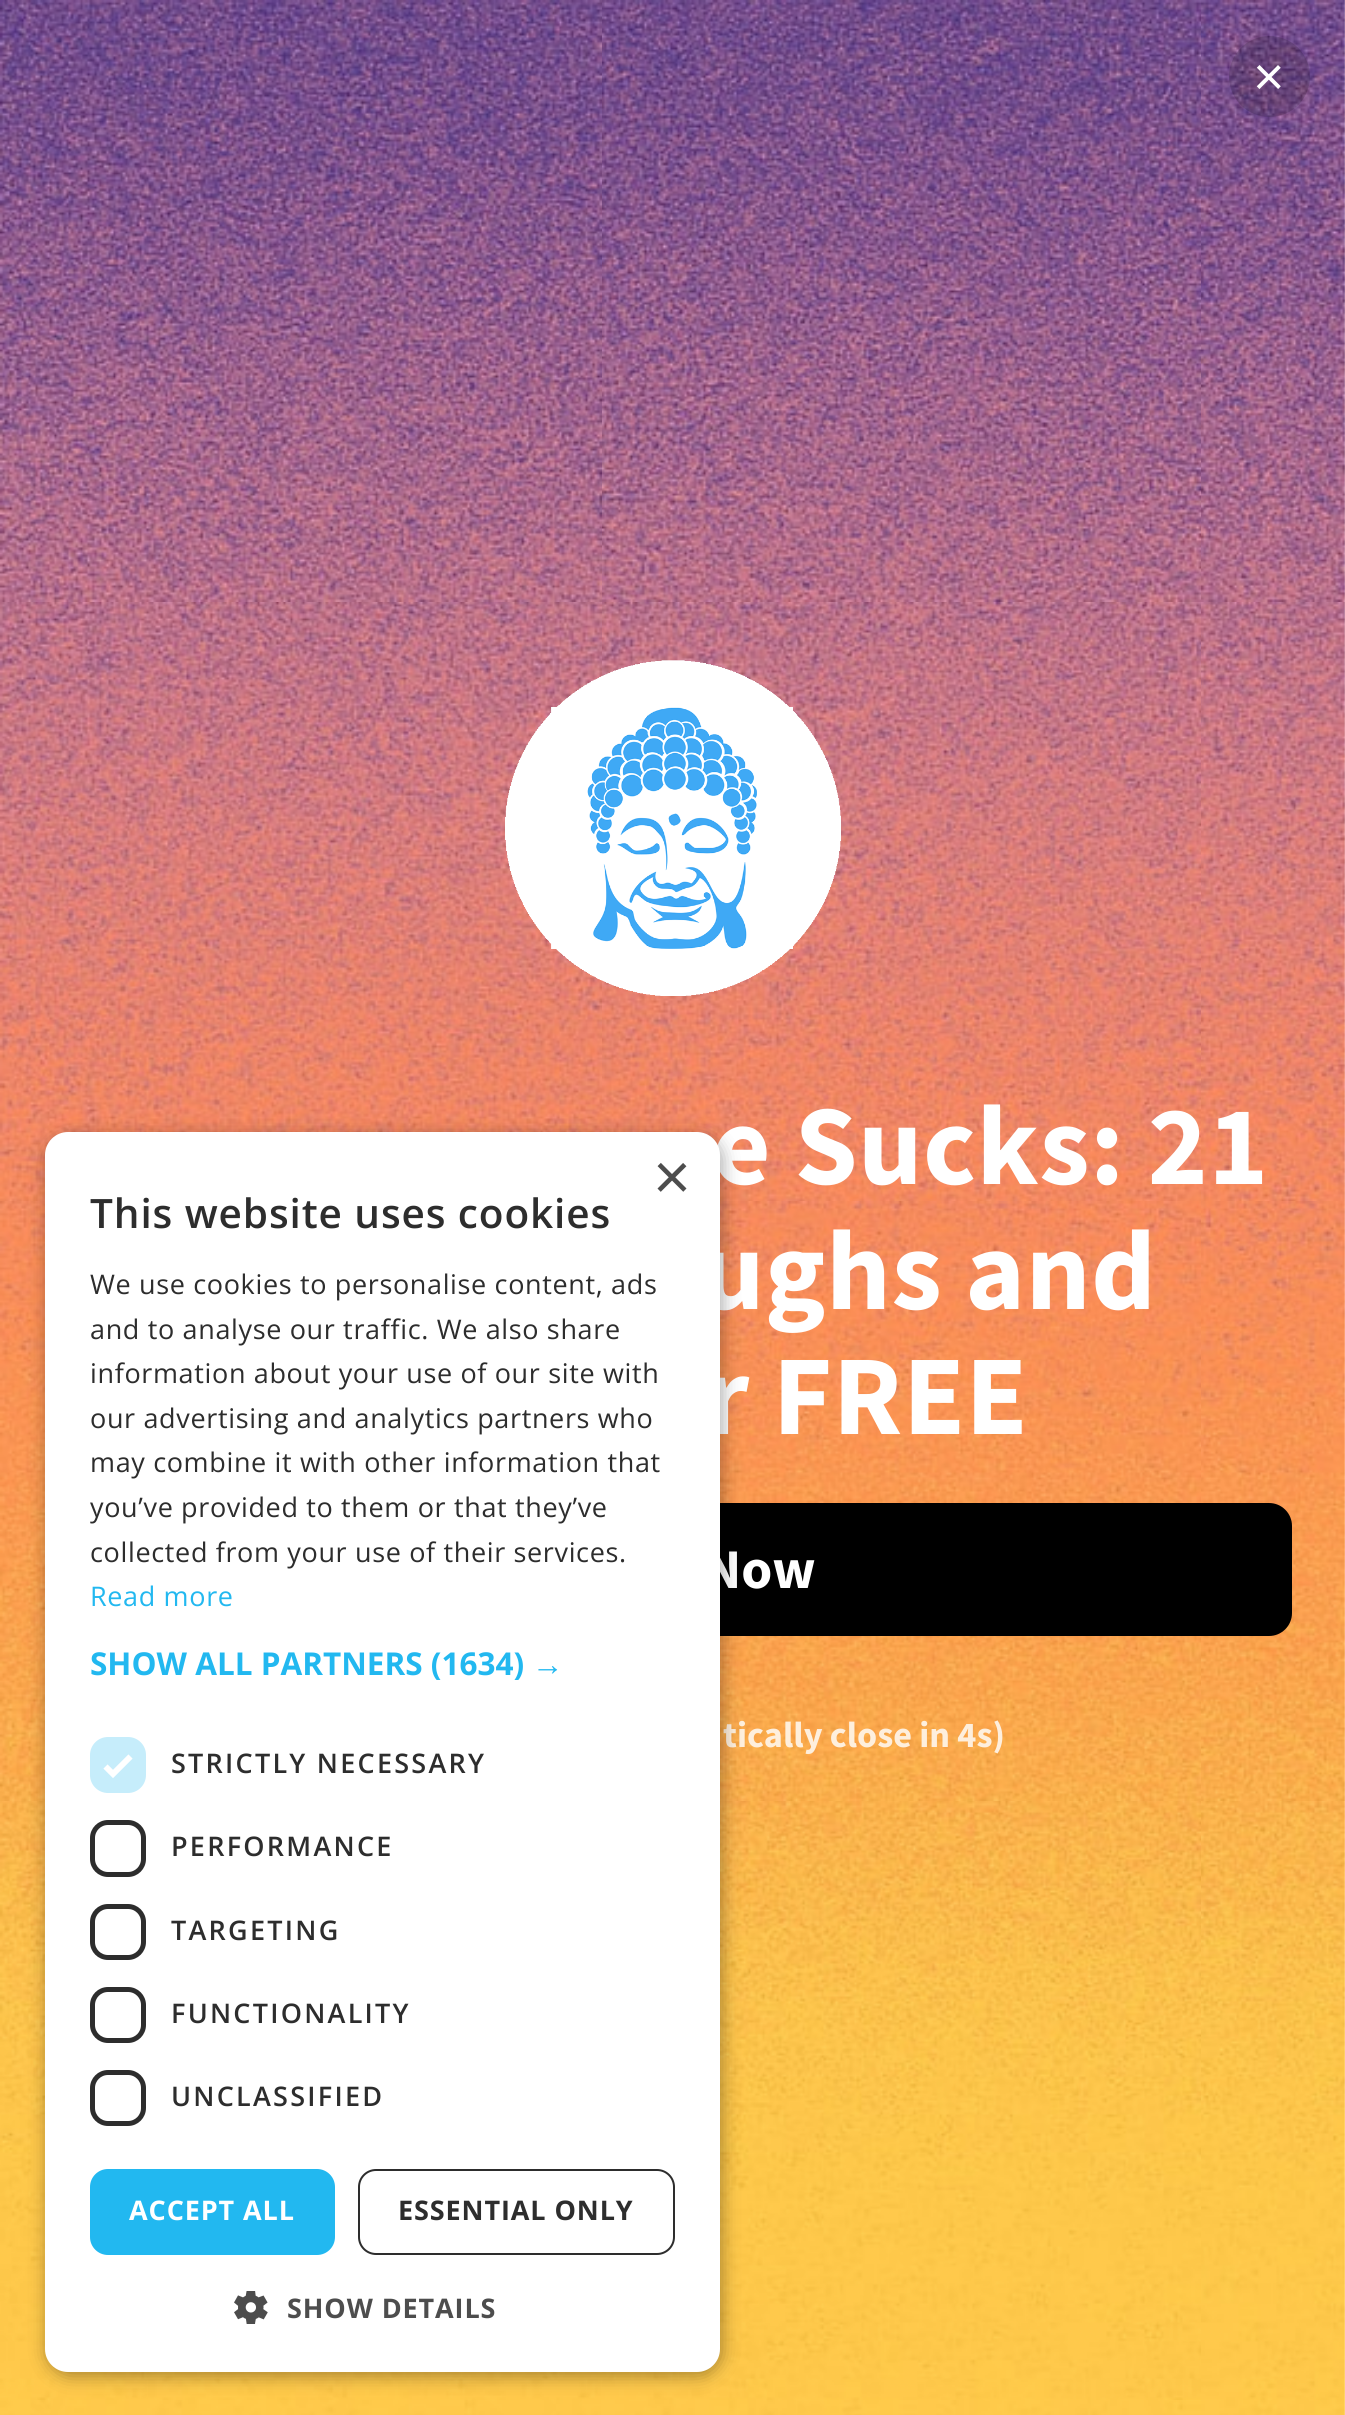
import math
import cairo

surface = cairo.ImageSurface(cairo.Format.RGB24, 1345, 2415)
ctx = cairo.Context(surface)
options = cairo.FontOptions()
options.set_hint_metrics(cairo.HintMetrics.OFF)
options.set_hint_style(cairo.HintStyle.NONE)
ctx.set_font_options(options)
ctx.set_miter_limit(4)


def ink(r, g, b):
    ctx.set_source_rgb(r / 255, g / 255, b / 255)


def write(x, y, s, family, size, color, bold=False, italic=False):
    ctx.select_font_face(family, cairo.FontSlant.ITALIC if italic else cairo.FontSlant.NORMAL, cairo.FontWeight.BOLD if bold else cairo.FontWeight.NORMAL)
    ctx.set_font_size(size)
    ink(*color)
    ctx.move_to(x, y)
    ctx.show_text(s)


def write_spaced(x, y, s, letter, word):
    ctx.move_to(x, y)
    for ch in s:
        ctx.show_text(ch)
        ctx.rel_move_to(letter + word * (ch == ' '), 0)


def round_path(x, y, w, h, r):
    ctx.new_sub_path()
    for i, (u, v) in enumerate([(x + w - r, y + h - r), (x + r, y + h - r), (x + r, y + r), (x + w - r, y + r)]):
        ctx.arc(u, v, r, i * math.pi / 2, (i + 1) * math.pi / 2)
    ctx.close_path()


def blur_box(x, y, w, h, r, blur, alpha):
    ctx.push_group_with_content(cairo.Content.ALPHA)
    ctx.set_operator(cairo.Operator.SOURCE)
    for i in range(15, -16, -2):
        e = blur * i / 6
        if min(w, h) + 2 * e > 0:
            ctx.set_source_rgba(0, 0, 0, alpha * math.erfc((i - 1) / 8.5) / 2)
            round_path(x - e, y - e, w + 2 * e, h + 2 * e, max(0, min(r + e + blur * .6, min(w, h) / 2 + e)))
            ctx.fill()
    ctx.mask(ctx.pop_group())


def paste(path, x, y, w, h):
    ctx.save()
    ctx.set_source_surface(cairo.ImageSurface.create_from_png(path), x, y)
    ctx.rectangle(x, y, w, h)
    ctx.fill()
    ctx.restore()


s1 = dict(family="Liberation Sans", size=54, color=(255, 255, 255))
s2 = dict(family="Source Sans Pro", size=56, color=(255, 255, 255), bold=True)
s3 = dict(family="Source Sans Pro", size=36.25, color=(254, 239, 221), bold=True)
s4 = dict(family="Liberation Sans", size=65, color=(77, 77, 77))
s5 = dict(family="Open Sans", size=31.5, color=(34, 184, 240), bold=True)
s6 = dict(family="Liberation Sans", size=31.5, color=(34, 184, 240), bold=True)

ink(255, 255, 255)
ctx.paint()
ctx.rectangle(-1, 118, 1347, 111)
ink(219, 219, 219)
ctx.stroke()
ink(0, 0, 0)
blur_box(0, 2, 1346, 117, 0, 3.5, 0.08)
paste("pic1.png", 0, 0, 1345, 2415)
ctx.set_source_rgba(0, 0, 0, 0.15)
ctx.arc(1269.5, 76.5, 40.5, 0, 2 * math.pi)
ctx.fill()
write(1253, 95, "×", **s1)
paste("pic2.png", 505, 660, 336, 336)
ctx.select_font_face("Source Sans Pro", cairo.FontSlant.NORMAL, cairo.FontWeight.BOLD)
ctx.set_font_size(113.5)
write_spaced(712, 1184, "e Sucks: 21", 0.5, 0)
write_spaced(700, 1309, "ughs and", 0.5, 0)
write_spaced(704, 1434, "r FREE", 0.5, 0)
ink(0, 0, 0)
round_path(54, 1503, 1238, 133, 23)
ctx.fill()
round_path(55, 1504, 1236, 131, 22)
ctx.set_source_rgba(0, 0, 0, 0.08)
ctx.stroke()
write(704, 1588, "Now", **s2)
write(723, 1747, "tically close in 4s)", **s3)
ink(0, 0, 0)
blur_box(47, 1136, 675, 1240, 23, 9, 0.35)
ink(255, 255, 255)
round_path(45, 1132, 675, 1240, 23)
ctx.fill()
write(653, 1199, "×", **s4)
ctx.select_font_face("Open Sans SemiBold")
ctx.set_font_size(40.5)
ink(45, 45, 45)
write_spaced(90, 1228, "This website uses cookies", 0.9, 0)
ctx.select_font_face("Open Sans")
ctx.set_font_size(27)
write_spaced(90, 1294, "We use cookies to personalise content, ads", 0.65, 0)
write_spaced(90, 1339, "and to analyse our traffic. We also share", 0.65, 0)
write_spaced(90, 1383, "information about your use of our site with", 0.65, 0)
write_spaced(90, 1428, "our advertising and analytics partners who", 0.65, 0)
write_spaced(90, 1472, "may combine it with other information that", 0.65, 0)
write_spaced(90, 1517, "you’ve provided to them or that they’ve", 0.65, 0)
write_spaced(90, 1562, "collected from your use of their services.", 0.65, 0)
ink(34, 184, 240)
write_spaced(90, 1606, "Read more", 0.65, 0)
write(90, 1675, "SHOW ALL PARTNERS (1634)", **s5)
write(532, 1675, "→", **s6)
ink(198, 237, 251)
round_path(90, 1737, 56, 56, 18)
ctx.fill()
ctx.new_path()
ctx.move_to(105.5, 1766.5)
ctx.line_to(113, 1774)
ctx.line_to(130.5, 1756.5)
ink(255, 255, 255)
ctx.set_line_width(5.9)
ctx.stroke()
ctx.select_font_face("Open Sans SemiBold")
ctx.set_font_size(27)
ink(45, 45, 45)
write_spaced(171, 1773, "STRICTLY NECESSARY", 2.25, 0)
round_path(92.5, 1822.5, 51, 52, 15.5)
ctx.set_line_width(5)
ctx.stroke()
write_spaced(171, 1856, "PERFORMANCE", 2.25, 0)
round_path(92.5, 1906.5, 51, 51, 15.5)
ctx.stroke()
write_spaced(171, 1940, "TARGETING", 2.25, 0)
round_path(92.5, 1989.5, 51, 51, 15.5)
ctx.stroke()
write_spaced(171, 2023, "FUNCTIONALITY", 2.25, 0)
round_path(92.5, 2072.5, 51, 51, 15.5)
ctx.stroke()
write_spaced(171, 2106, "UNCLASSIFIED", 2.25, 0)
ink(34, 184, 240)
round_path(90, 2169, 245, 86, 18)
ctx.fill()
ctx.select_font_face("Open Sans", cairo.FontSlant.NORMAL, cairo.FontWeight.BOLD)
ink(255, 255, 255)
write_spaced(129, 2220, "ACCEPT ALL", 0.9, 0)
round_path(359, 2170, 315, 84, 17)
ink(45, 45, 45)
ctx.set_line_width(2)
ctx.stroke()
write_spaced(398, 2220, "ESSENTIAL ONLY", 0.9, 0)
paste("pic3.png", 234, 2291, 34, 33)
ink(77, 77, 77)
write_spaced(287, 2318, "SHOW DETAILS", 0.9, 0)
surface.write_to_png("screenshot.png")
